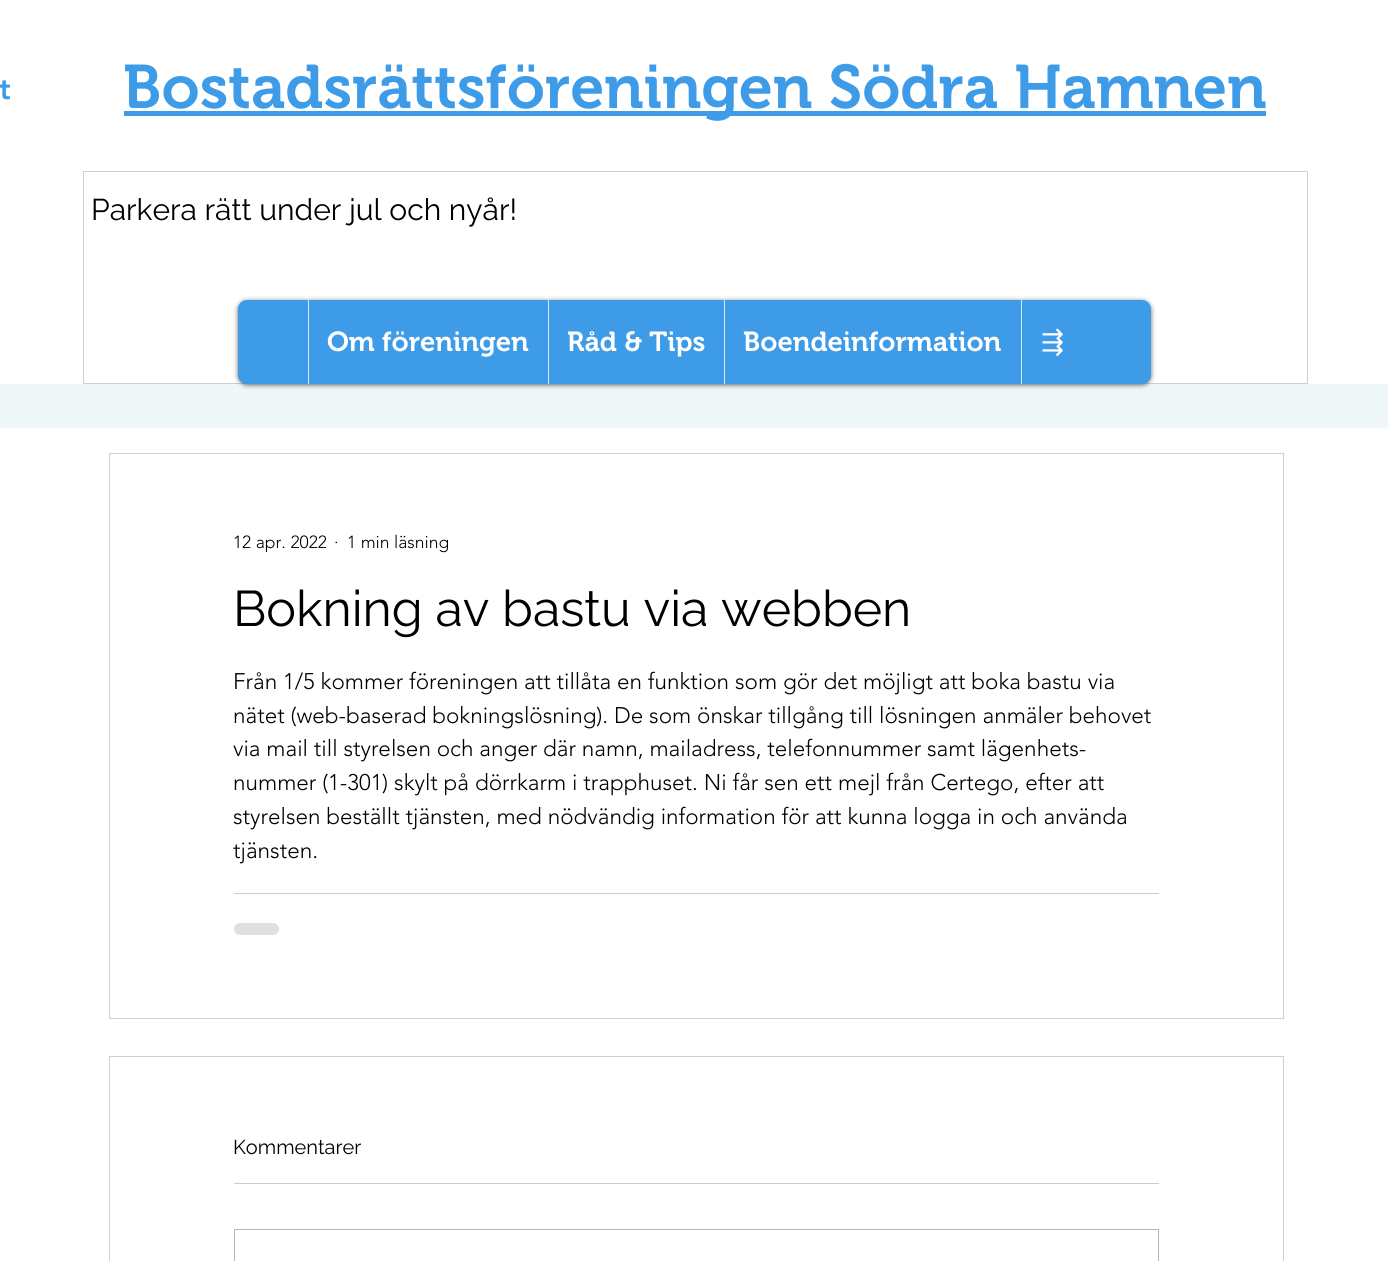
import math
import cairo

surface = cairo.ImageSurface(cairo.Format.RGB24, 1388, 1261)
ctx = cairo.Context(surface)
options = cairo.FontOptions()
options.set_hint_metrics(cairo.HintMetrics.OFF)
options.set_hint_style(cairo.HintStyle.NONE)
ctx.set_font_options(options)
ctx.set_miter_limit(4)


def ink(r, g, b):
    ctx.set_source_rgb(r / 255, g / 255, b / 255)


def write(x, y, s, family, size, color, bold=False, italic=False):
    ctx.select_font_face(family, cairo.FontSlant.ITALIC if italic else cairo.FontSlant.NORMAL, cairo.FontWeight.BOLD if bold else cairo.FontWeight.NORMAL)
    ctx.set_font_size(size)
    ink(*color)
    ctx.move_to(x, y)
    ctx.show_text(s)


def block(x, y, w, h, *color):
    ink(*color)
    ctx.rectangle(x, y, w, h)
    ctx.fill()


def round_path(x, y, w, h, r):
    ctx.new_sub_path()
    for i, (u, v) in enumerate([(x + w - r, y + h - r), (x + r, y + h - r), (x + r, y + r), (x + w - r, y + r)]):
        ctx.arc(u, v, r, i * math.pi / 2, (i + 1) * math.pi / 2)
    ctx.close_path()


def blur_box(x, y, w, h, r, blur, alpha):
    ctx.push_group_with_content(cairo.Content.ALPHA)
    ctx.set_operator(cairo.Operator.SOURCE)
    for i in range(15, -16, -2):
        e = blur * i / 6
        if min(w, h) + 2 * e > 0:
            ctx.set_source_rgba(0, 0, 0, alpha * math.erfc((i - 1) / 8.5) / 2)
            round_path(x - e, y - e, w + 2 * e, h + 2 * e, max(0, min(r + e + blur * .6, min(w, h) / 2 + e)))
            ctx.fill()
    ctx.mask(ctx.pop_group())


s1 = dict(family="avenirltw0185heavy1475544 Black", size=30, color=(61, 155, 232))
s2 = dict(family="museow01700 SemiBold", size=61.25, color=(61, 155, 232))
s3 = dict(family="Raleway", size=30, color=(0, 0, 0))
s4 = dict(family="museow01700 SemiBold", size=27.5, color=(255, 255, 255))
s5 = dict(family="DejaVu Sans", size=27.5, color=(255, 255, 255))
s6 = dict(family="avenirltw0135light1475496 Light", size=17.5, color=(0, 0, 0))
s7 = dict(family="Raleway", size=50, color=(0, 0, 0))
s8 = dict(family="avenirltw0135light1475496 Light", size=22.5, color=(0, 0, 0))
s9 = dict(family="Raleway", size=20, color=(0, 0, 0))

ink(240, 247, 249)
ctx.paint()
block(0, 0, 1388, 384, 255, 255, 255)
write(-1, 99, "t", **s1)
block(124, 111, 1142, 5, 61, 155, 232)
write(123, 108, "Bostadsrättsföreningen Södra Hamnen", **s2)
ctx.rectangle(83.5, 171.5, 1224, 212)
ink(207, 207, 207)
ctx.set_line_width(1)
ctx.stroke()
write(91, 220, "Parkera rätt under jul och nyår!", **s3)
ink(0, 0, 0)
blur_box(238, 301, 913, 84, 9, 2.5, 0.6)
ink(61, 155, 232)
round_path(238, 300, 913, 84, 9)
ctx.fill()
block(308, 300, 1, 84, 208, 237, 245)
write(327, 351, "Om föreningen", **s4)
block(548, 300, 1, 84, 208, 237, 245)
write(567, 351, "Råd & Tips", **s4)
block(724, 300, 1, 84, 208, 237, 245)
write(743, 351, "Boendeinformation", **s4)
block(1021, 300, 1, 84, 208, 237, 245)
write(1041, 351, "⇶", **s5)
block(0, 428, 1388, 833, 255, 255, 255)
ctx.rectangle(109.5, 453.5, 1174, 565)
ink(207, 207, 207)
ctx.stroke()
write(233, 548, "12 apr. 2022", **s6)
write(334, 548, "·", **s6)
write(347, 548, "1 min läsning", **s6)
write(233, 626, "Bokning av bastu via webben", **s7)
write(233, 689, "Från 1/5 kommer föreningen att tillåta en funktion som gör det möjligt att boka bastu via", **s8)
write(233, 723, "nätet (web-baserad bokningslösning). De som önskar tillgång till lösningen anmäler behovet", **s8)
write(233, 756, "via mail till styrelsen och anger där namn, mailadress, telefonnummer samt lägenhets-", **s8)
write(233, 790, "nummer (1-301) skylt på dörrkarm i trapphuset. Ni får sen ett mejl från Certego, efter att", **s8)
write(233, 824, "styrelsen beställt tjänsten, med nödvändig information för att kunna logga in och använda", **s8)
write(233, 858, "tjänsten.", **s8)
block(234, 893, 925, 1, 204, 204, 204)
ink(224, 224, 224)
round_path(234, 923, 45, 12, 6)
ctx.fill()
ctx.rectangle(109.5, 1056.5, 1174, 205)
ink(207, 207, 207)
ctx.stroke()
write(233, 1154, "Kommentarer", **s9)
block(234, 1183, 925, 1, 204, 204, 204)
ctx.rectangle(234.5, 1229.5, 924, 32)
ink(179, 179, 179)
ctx.stroke()
surface.write_to_png("screenshot.png")
